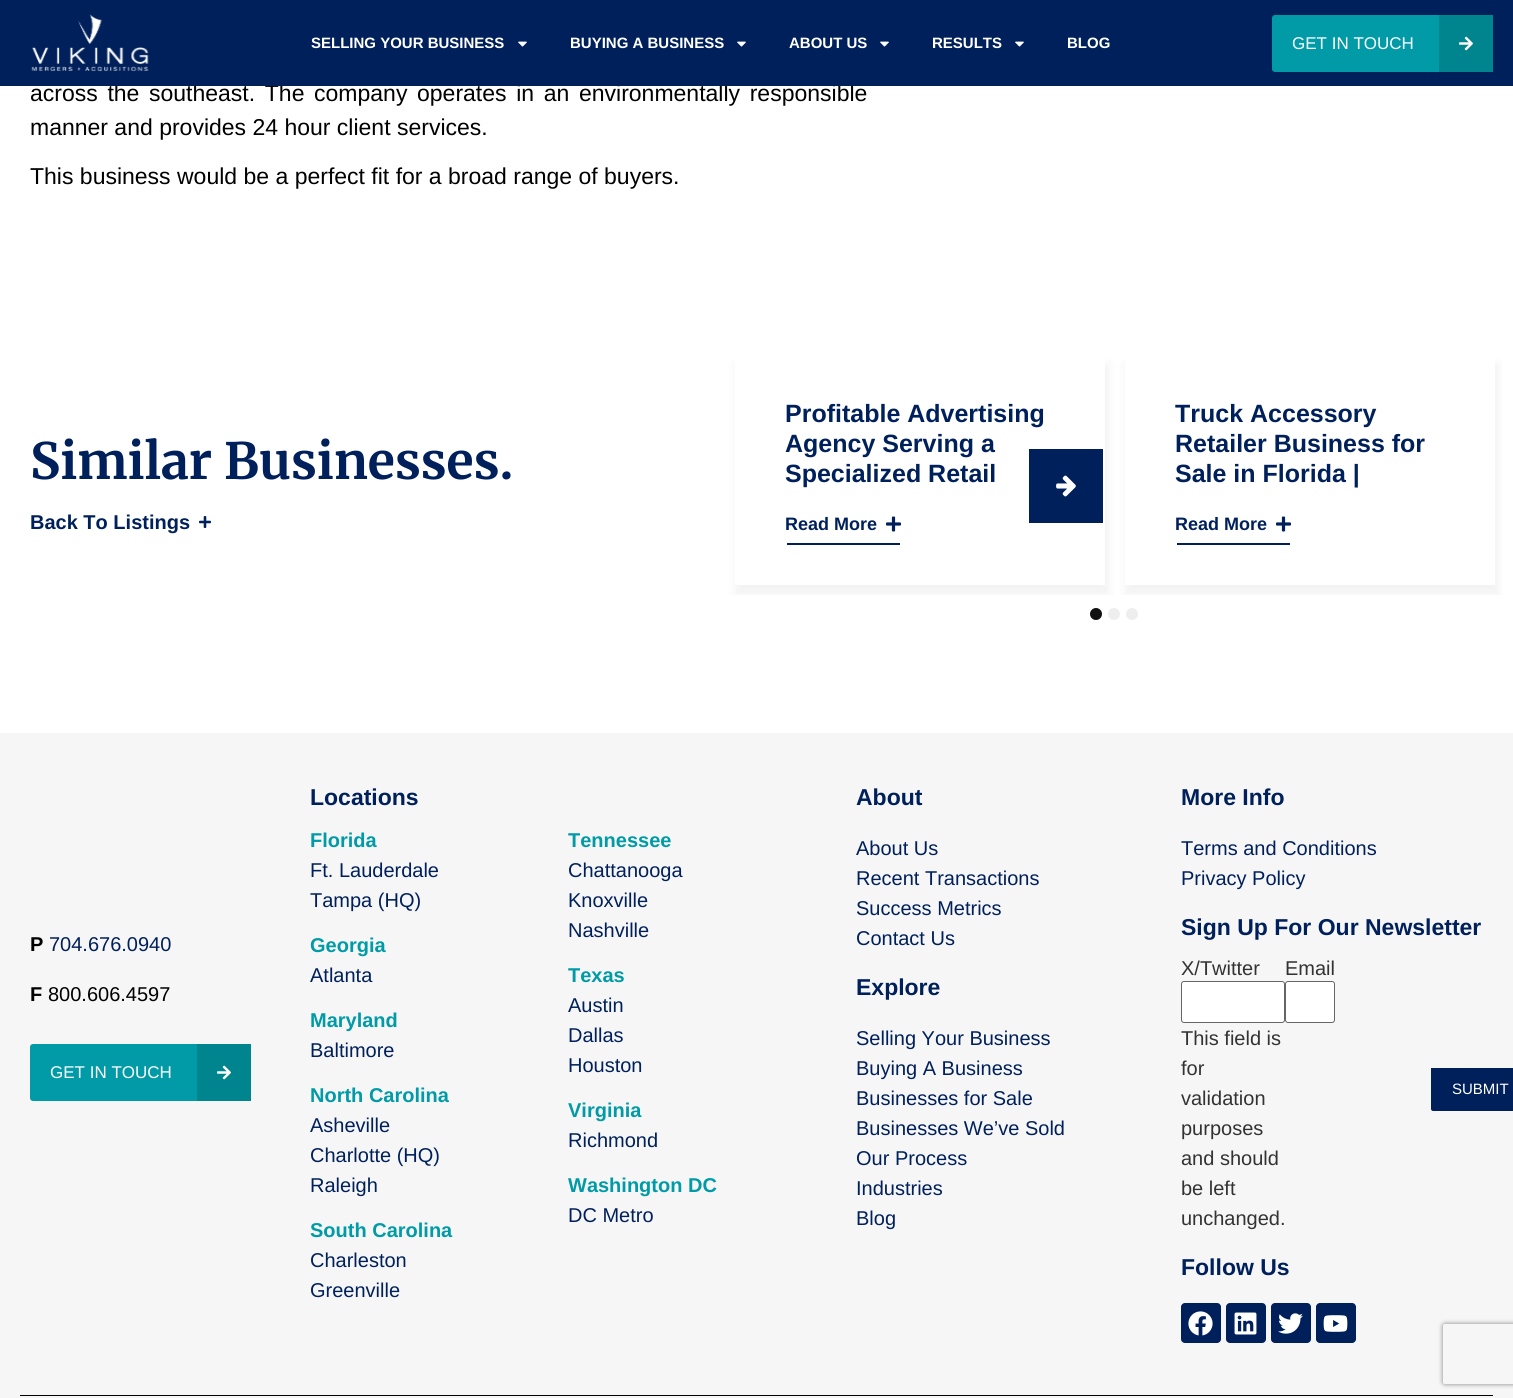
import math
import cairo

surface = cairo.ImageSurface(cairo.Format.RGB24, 1513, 1398)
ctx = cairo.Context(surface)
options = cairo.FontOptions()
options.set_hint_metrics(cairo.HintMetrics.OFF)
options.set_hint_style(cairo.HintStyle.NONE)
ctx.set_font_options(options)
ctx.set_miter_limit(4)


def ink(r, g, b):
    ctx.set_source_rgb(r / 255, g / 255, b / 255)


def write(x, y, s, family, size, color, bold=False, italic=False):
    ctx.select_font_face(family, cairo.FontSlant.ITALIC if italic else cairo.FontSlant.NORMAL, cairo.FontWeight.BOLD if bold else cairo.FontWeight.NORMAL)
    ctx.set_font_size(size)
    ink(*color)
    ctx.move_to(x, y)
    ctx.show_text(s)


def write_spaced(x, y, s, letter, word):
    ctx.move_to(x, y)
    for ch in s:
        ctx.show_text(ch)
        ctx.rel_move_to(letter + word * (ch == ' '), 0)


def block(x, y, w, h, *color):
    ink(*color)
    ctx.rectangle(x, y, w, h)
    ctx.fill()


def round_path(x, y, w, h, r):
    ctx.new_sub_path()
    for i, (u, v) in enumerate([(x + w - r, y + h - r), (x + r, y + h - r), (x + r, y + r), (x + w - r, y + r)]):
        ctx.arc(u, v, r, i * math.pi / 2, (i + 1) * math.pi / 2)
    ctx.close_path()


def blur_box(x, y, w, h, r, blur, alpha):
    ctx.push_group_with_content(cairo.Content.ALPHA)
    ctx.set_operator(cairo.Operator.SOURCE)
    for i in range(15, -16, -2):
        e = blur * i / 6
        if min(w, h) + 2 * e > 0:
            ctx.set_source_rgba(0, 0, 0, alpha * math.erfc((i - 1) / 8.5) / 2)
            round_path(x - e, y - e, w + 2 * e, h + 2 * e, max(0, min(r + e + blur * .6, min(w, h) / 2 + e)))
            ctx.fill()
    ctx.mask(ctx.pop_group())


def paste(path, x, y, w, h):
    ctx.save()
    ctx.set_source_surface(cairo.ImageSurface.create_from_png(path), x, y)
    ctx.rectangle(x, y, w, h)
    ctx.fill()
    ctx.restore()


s1 = dict(family="Liberation Sans", size=15, color=(255, 255, 255), bold=True)
s2 = dict(family="Liberation Sans", size=17, color=(255, 255, 255))
s3 = dict(family="Liberation Sans", size=23, color=(0, 0, 0))
s4 = dict(family="Merriweather", size=50, color=(0, 32, 91), bold=True)
s5 = dict(family="Liberation Sans", size=20, color=(0, 32, 91), bold=True)
s6 = dict(family="Liberation Sans", size=25, color=(0, 32, 91), bold=True)
s7 = dict(family="Liberation Sans", size=18, color=(0, 32, 91), bold=True)
s8 = dict(family="Liberation Sans", size=20, color=(0, 0, 0), bold=True)
s9 = dict(family="Liberation Sans", size=20, color=(0, 32, 91))
s10 = dict(family="Liberation Sans", size=20, color=(0, 0, 0))
s11 = dict(family="Liberation Sans", size=23, color=(0, 32, 91), bold=True)
s12 = dict(family="Liberation Sans", size=20, color=(0, 155, 167), bold=True)
s13 = dict(family="Liberation Sans", size=20, color=(51, 51, 51))
s14 = dict(family="Liberation Sans", size=15, color=(255, 255, 255))

ink(255, 255, 255)
ctx.paint()
ctx.select_font_face("Liberation Sans")
ctx.set_font_size(23)
ink(0, 0, 0)
write_spaced(30, 101, "across the southeast. The company operates in an environmentally responsible", 0, 3.25)
block(0, 0, 1513, 86, 0, 32, 91)
paste("pic1.png", 31, 14, 118, 58)
write(311, 48, "SELLING YOUR BUSINESS", **s1)
paste("pic2.png", 518, 41, 9, 6)
write(570, 48, "BUYING A BUSINESS", **s1)
paste("pic2.png", 737, 41, 9, 6)
write(789, 48, "ABOUT US", **s1)
paste("pic2.png", 880, 41, 9, 6)
write(932, 48, "RESULTS", **s1)
paste("pic2.png", 1015, 41, 9, 6)
write(1067, 48, "BLOG", **s1)
ink(0, 155, 167)
round_path(1272, 15, 221, 57, 3)
ctx.fill()
write(1292, 49, "GET IN TOUCH", **s2)
block(1439, 15, 54, 57, 0, 133, 143)
paste("pic3.png", 1459, 36, 14, 15)
write(30, 135, "manner and provides 24 hour client services.", **s3)
write(30, 184, "This business would be a perfect fit for a broad range of buyers.", **s3)
write(30, 479, "Similar Businesses.", **s4)
write(30, 529, "Back To Listings", **s5)
paste("pic4.png", 199, 516, 12, 12)
ink(17, 17, 17)
ctx.arc(1096, 614, 6, 0, 2 * math.pi)
ctx.fill()
ink(238, 238, 238)
ctx.arc(1114, 614, 6, 0, 2 * math.pi)
ctx.fill()
ctx.save()
ctx.rectangle(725, 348, 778, 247)
ctx.clip()
ctx.set_fill_rule(cairo.FillRule.EVEN_ODD)
ctx.new_path()
ctx.move_to(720, 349)
ctx.line_to(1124, 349)
ctx.line_to(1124, 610)
ctx.line_to(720, 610)
ctx.close_path()
ctx.move_to(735, 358)
ctx.line_to(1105, 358)
ctx.line_to(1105, 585)
ctx.line_to(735, 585)
ctx.close_path()
ctx.clip()
ink(0, 0, 0)
blur_box(735, 364, 374, 231, 0, 4.5, 0.05)
ctx.restore()
write(785, 422, "Profitable Advertising", **s6)
write(785, 452, "Agency Serving a", **s6)
write(785, 482, "Specialized Retail", **s6)
block(787, 543, 113, 2, 0, 32, 91)
write(785, 530, "Read More", **s7)
paste("pic5.png", 886, 516, 15, 16)
ink(238, 238, 238)
ctx.arc(1132, 614, 6, 0, 2 * math.pi)
ctx.fill()
ctx.save()
ctx.rectangle(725, 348, 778, 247)
ctx.clip()
ctx.set_fill_rule(cairo.FillRule.EVEN_ODD)
ctx.new_path()
ctx.move_to(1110, 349)
ctx.line_to(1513, 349)
ctx.line_to(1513, 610)
ctx.line_to(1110, 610)
ctx.close_path()
ctx.move_to(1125, 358)
ctx.line_to(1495, 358)
ctx.line_to(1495, 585)
ctx.line_to(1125, 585)
ctx.close_path()
ctx.clip()
ink(0, 0, 0)
blur_box(1125, 364, 374, 231, 0, 4.5, 0.05)
ctx.restore()
ctx.save()
ctx.rectangle(1175, 398, 270, 90)
ctx.clip()
write(1175, 422, "Truck Accessory", **s6)
ctx.restore()
write(1175, 452, "Retailer Business for", **s6)
write(1175, 482, "Sale in Florida |", **s6)
block(1177, 543, 113, 2, 0, 32, 91)
write(1175, 530, "Read More", **s7)
paste("pic5.png", 1276, 516, 15, 16)
block(1029, 449, 74, 74, 0, 32, 91)
paste("pic6.png", 1056, 475, 20, 22)
block(0, 733, 1513, 665, 246, 246, 246)
write(30, 951, "P", **s8)
write(49, 951, "704.676.0940", **s9)
write(30, 1001, "F", **s8)
write(48, 1001, "800.606.4597", **s10)
ink(0, 155, 167)
round_path(30, 1044, 221, 57, 3)
ctx.fill()
write(50, 1078, "GET IN TOUCH", **s2)
block(197, 1044, 54, 57, 0, 133, 143)
paste("pic3.png", 217, 1065, 14, 15)
write(310, 805, "Locations", **s11)
write(310, 847, "Florida", **s12)
write(310, 877, "Ft. Lauderdale", **s9)
write(310, 907, "Tampa (HQ)", **s9)
write(310, 952, "Georgia", **s12)
write(310, 982, "Atlanta", **s9)
write(310, 1027, "Maryland", **s12)
write(310, 1057, "Baltimore", **s9)
write(310, 1102, "North Carolina", **s12)
write(310, 1132, "Asheville", **s9)
write(310, 1162, "Charlotte (HQ)", **s9)
write(310, 1192, "Raleigh", **s9)
write(310, 1237, "South Carolina", **s12)
write(310, 1267, "Charleston", **s9)
write(310, 1297, "Greenville", **s9)
write(568, 847, "Tennessee", **s12)
write(568, 877, "Chattanooga", **s9)
write(568, 907, "Knoxville", **s9)
write(568, 937, "Nashville", **s9)
write(568, 982, "Texas", **s12)
write(568, 1012, "Austin", **s9)
write(568, 1042, "Dallas", **s9)
write(568, 1072, "Houston", **s9)
write(568, 1117, "Virginia", **s12)
write(568, 1147, "Richmond", **s9)
write(568, 1192, "Washington DC", **s12)
write(568, 1222, "DC Metro", **s9)
write(856, 805, "About", **s11)
write(856, 855, "About Us", **s9)
write(856, 885, "Recent Transactions", **s9)
write(856, 915, "Success Metrics", **s9)
write(856, 945, "Contact Us", **s9)
write(856, 995, "Explore", **s11)
write(856, 1045, "Selling Your Business", **s9)
write(856, 1075, "Buying A Business", **s9)
write(856, 1105, "Businesses for Sale", **s9)
write(856, 1135, "Businesses We’ve Sold", **s9)
write(856, 1165, "Our Process", **s9)
write(856, 1195, "Industries", **s9)
write(856, 1225, "Blog", **s9)
write(1181, 805, "More Info", **s11)
write(1181, 855, "Terms and Conditions", **s9)
write(1181, 885, "Privacy Policy", **s9)
write(1181, 935, "Sign Up For Our Newsletter", **s11)
write(1181, 975, "X/Twitter", **s13)
ink(255, 255, 255)
round_path(1181.5, 981.5, 103, 41, 2.5)
ctx.fill_preserve()
ink(102, 102, 102)
ctx.set_line_width(1)
ctx.stroke()
write(1181, 1045, "This field is", **s13)
write(1181, 1075, "for", **s13)
write(1181, 1105, "validation", **s13)
write(1181, 1135, "purposes", **s13)
write(1181, 1165, "and should", **s13)
write(1181, 1195, "be left", **s13)
write(1181, 1225, "unchanged.", **s13)
write(1285, 975, "Email", **s13)
ink(255, 255, 255)
round_path(1285.5, 981.5, 49, 41, 2.5)
ctx.fill_preserve()
ink(102, 102, 102)
ctx.stroke()
ink(0, 32, 91)
ctx.new_path()
ctx.move_to(1431, 1068)
ctx.line_to(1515, 1068)
ctx.line_to(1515, 1109)
ctx.curve_to(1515, 1110, 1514, 1111, 1513, 1111)
ctx.line_to(1433, 1111)
ctx.curve_to(1432, 1111, 1431, 1110, 1431, 1109)
ctx.close_path()
ctx.fill()
write(1452, 1094, "SUBMIT", **s14)
write(1181, 1275, "Follow Us", **s11)
round_path(1181, 1303, 40, 40, 4)
ctx.fill()
paste("pic7.png", 1188, 1311, 25, 25)
round_path(1226, 1303, 40, 40, 4)
ctx.fill()
paste("pic8.png", 1234, 1312, 23, 23)
round_path(1271, 1303, 40, 40, 4)
ctx.fill()
paste("pic9.png", 1278, 1313, 25, 21)
round_path(1316, 1303, 40, 40, 4)
ctx.fill()
paste("pic10.png", 1323, 1315, 25, 17)
block(20, 1395, 1473, 1, 0, 0, 0)
ctx.save()
ctx.set_fill_rule(cairo.FillRule.EVEN_ODD)
ctx.new_path()
ctx.move_to(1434, 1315)
ctx.line_to(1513, 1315)
ctx.line_to(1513, 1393)
ctx.line_to(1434, 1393)
ctx.close_path()
ctx.move_to(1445, 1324)
ctx.line_to(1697, 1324)
ctx.curve_to(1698, 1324, 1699, 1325, 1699, 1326)
ctx.line_to(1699, 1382)
ctx.curve_to(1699, 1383, 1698, 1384, 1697, 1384)
ctx.line_to(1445, 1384)
ctx.curve_to(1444, 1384, 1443, 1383, 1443, 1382)
ctx.line_to(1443, 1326)
ctx.curve_to(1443, 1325, 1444, 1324, 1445, 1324)
ctx.close_path()
ctx.clip()
ink(128, 128, 128)
blur_box(1443, 1324, 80, 60, 2, 2.5, 1)
ctx.restore()
surface.write_to_png("screenshot.png")
